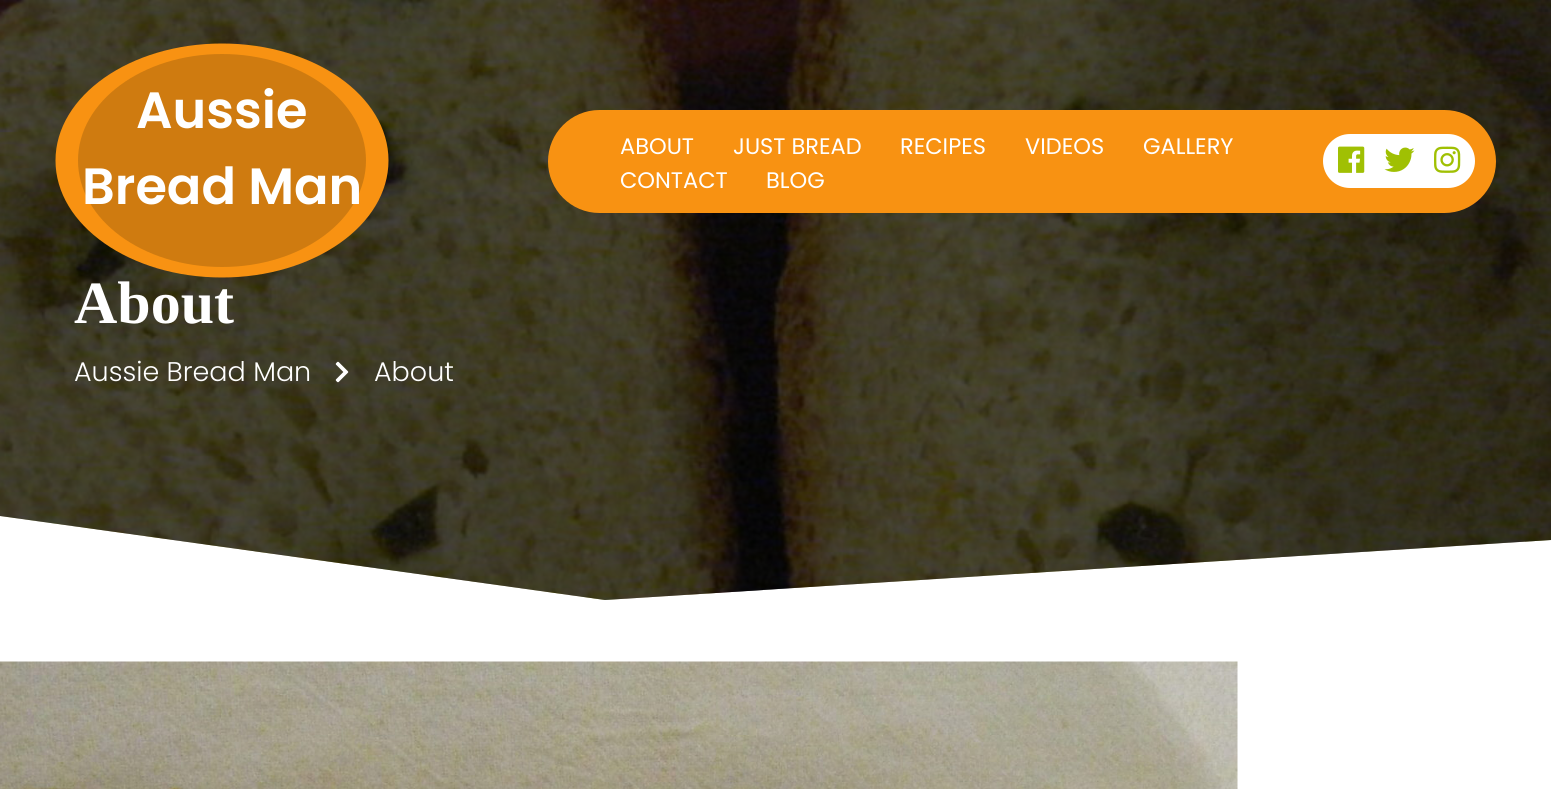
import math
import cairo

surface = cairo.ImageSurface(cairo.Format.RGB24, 1551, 789)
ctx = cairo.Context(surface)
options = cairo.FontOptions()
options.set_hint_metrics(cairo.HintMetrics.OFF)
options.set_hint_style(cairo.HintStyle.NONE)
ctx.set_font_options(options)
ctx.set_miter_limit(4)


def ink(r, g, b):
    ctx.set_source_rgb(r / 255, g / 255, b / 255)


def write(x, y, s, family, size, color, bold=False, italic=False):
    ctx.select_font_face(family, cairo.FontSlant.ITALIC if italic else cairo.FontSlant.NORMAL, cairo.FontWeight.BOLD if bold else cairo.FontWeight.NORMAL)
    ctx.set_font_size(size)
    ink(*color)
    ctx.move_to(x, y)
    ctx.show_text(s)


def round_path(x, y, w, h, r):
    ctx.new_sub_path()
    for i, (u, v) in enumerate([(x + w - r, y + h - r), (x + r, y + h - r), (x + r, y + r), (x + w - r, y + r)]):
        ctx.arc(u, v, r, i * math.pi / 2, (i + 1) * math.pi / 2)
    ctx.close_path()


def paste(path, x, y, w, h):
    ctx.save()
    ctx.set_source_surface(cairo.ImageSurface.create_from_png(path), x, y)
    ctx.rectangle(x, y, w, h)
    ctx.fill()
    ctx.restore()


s1 = dict(family="Poppins SemiBold", size=51, color=(255, 255, 255))
s2 = dict(family="Poppins", size=22.5, color=(255, 255, 255))
s3 = dict(family="Liberation Serif", size=60, color=(255, 255, 255), bold=True)
s4 = dict(family="Poppins Light", size=27, color=(255, 255, 255))

ink(255, 255, 255)
ctx.paint()
paste("pic4.png", 0, 0, 1551, 600)
ctx.set_source_rgba(0, 0, 0, 0.6)
ctx.new_path()
ctx.move_to(0, 0)
ctx.line_to(0, 516)
ctx.line_to(605, 600)
ctx.line_to(1551, 540)
ctx.line_to(1551, 0)
ctx.close_path()
ctx.fill()
ink(248, 146, 18)
ctx.new_path()
ctx.move_to(222, 43.5)
ctx.curve_to(314, 43.5, 388.5, 96, 388.5, 160.5)
ctx.curve_to(388.5, 225, 314, 277.5, 222, 277.5)
ctx.curve_to(130, 277.5, 55.5, 225, 55.5, 160.5)
ctx.curve_to(55.5, 96, 130, 43.5, 222, 43.5)
ctx.close_path()
ctx.fill()
ink(207, 123, 16)
ctx.new_path()
ctx.move_to(222, 54)
ctx.curve_to(301.5, 54, 366, 101.5, 366, 160.5)
ctx.curve_to(366, 219.5, 301.5, 267, 222, 267)
ctx.curve_to(142.5, 267, 78, 219.5, 78, 160.5)
ctx.curve_to(78, 101.5, 142.5, 54, 222, 54)
ctx.close_path()
ctx.fill()
write(136, 128, "Aussie", **s1)
write(82, 204, "Bread Man", **s1)
ink(248, 146, 18)
round_path(548, 110, 948, 103, 51.5)
ctx.fill()
write(620, 154, "ABOUT", **s2)
write(733, 154, "JUST BREAD", **s2)
write(900, 154, "RECIPES", **s2)
write(1025, 154, "VIDEOS", **s2)
write(1143, 154, "GALLERY", **s2)
write(620, 188, "CONTACT", **s2)
write(766, 188, "BLOG", **s2)
round_path(1323, 134, 152, 54, 27)
ctx.fill()
paste("pic1.png", 1338, 146, 27, 27)
paste("pic2.png", 1384, 147, 31, 25)
paste("pic3.png", 1434, 146, 27, 27)
write(74, 323, "About", **s3)
write(74, 381, "Aussie Bread Man", **s4)
paste("pic5.png", 335, 361, 14, 22)
write(374, 381, "About", **s4)
paste("pic6.png", 0, 661, 1238, 128)
surface.write_to_png("screenshot.png")
